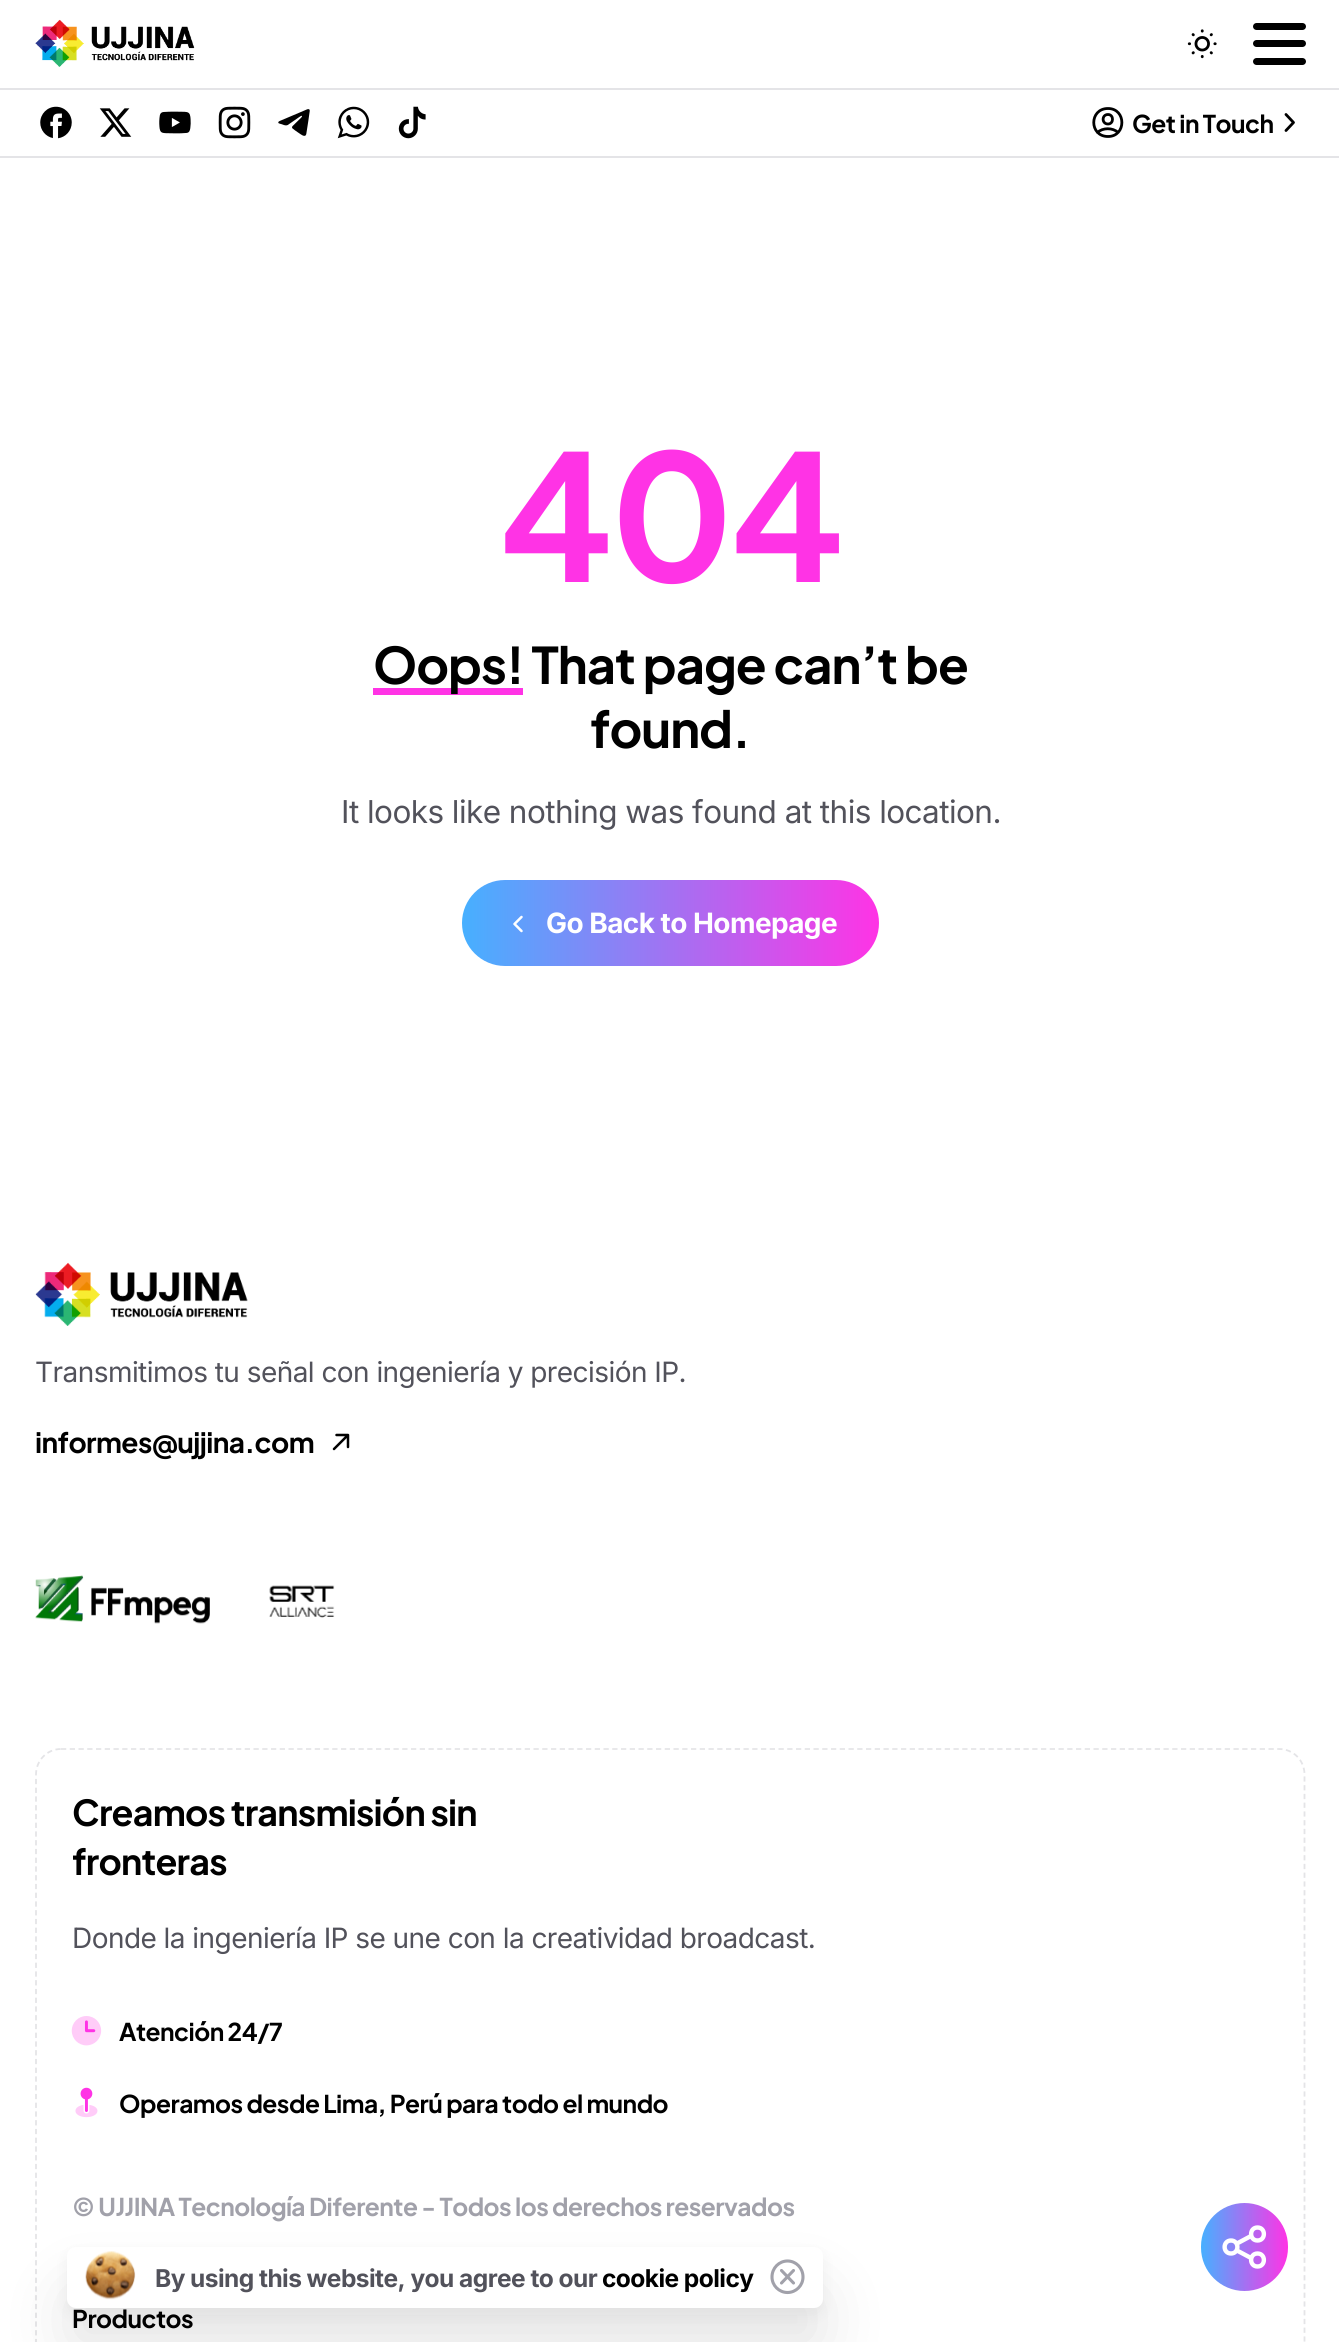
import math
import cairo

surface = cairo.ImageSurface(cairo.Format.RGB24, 1339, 2342)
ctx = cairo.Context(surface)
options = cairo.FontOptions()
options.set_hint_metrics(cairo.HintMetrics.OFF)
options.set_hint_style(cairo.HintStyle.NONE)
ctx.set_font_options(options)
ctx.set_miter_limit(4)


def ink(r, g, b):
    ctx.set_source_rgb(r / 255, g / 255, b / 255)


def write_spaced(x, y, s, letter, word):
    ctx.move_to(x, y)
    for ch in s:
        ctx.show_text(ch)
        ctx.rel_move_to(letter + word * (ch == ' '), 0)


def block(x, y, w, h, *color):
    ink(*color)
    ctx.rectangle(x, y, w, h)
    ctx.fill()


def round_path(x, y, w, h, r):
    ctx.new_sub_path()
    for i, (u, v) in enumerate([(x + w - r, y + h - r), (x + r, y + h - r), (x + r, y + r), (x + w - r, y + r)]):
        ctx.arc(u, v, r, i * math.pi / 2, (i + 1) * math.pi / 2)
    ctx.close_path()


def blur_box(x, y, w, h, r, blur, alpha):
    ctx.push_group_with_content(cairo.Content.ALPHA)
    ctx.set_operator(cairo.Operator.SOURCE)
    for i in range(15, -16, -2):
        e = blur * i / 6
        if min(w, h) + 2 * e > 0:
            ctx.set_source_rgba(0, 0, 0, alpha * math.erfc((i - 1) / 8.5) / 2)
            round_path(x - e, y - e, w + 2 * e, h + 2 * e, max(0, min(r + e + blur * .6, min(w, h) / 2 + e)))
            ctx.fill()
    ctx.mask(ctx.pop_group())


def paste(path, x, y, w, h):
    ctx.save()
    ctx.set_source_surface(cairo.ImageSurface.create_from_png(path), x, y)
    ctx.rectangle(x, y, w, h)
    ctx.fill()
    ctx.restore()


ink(255, 255, 255)
ctx.paint()
paste("pic1.png", 35, 19, 160, 48)
paste("pic2.png", 1187, 29, 30, 30)
ink(0, 0, 0)
round_path(1253, 23, 53, 7, 3.5)
ctx.fill()
round_path(1253, 40, 53, 7, 3.5)
ctx.fill()
round_path(1253, 58, 53, 7, 3.5)
ctx.fill()
block(0, 88, 1339, 2, 228, 228, 231)
paste("pic3.png", 40, 106, 32, 33)
paste("pic4.png", 99, 108, 33, 29)
paste("pic5.png", 159, 111, 32, 23)
paste("pic6.png", 218, 106, 33, 33)
paste("pic7.png", 278, 109, 32, 27)
paste("pic8.png", 337, 106, 33, 33)
paste("pic9.png", 398, 106, 28, 33)
ctx.new_path()
ctx.move_to(1108, 136.5)
ctx.curve_to(1126.5, 136.5, 1126.5, 108.5, 1108, 108.5)
ctx.curve_to(1089, 108.5, 1089, 136.5, 1108, 136.5)
ctx.close_path()
ctx.move_to(1097.5, 132.5)
ctx.curve_to(1102.5, 127.5, 1113, 127.5, 1118, 132.5)
ctx.move_to(1108, 124)
ctx.curve_to(1114, 124, 1114, 114.5, 1108, 114.5)
ctx.curve_to(1101.5, 114.5, 1101.5, 124, 1108, 124)
ctx.close_path()
ink(0, 0, 0)
ctx.set_line_width(2.8)
ctx.set_line_cap(cairo.LineCap.ROUND)
ctx.set_line_join(cairo.LineJoin.ROUND)
ctx.stroke()
ctx.select_font_face("Plus Jakarta Sans", cairo.FontSlant.NORMAL, cairo.FontWeight.BOLD)
ctx.set_font_size(24.5)
write_spaced(1132, 133, "Get in Touch", -0.5, 0)
ctx.new_path()
ctx.move_to(1286, 130.5)
ctx.line_to(1293.5, 122.5)
ctx.line_to(1286, 114.5)
ctx.stroke()
block(0, 156, 1339, 2, 228, 228, 231)
ctx.set_font_size(175)
ink(255, 51, 229)
write_spaced(499, 582, "404", -3.5, 0)
block(373, 688, 150, 7, 255, 51, 229)
ctx.set_font_size(50.4)
ink(0, 0, 0)
write_spaced(373, 684, "Oops! That page can’t be", -1, 0)
write_spaced(590, 748, "found.", -1, 0)
ctx.select_font_face("Inter")
ctx.set_font_size(31.5)
ink(82, 82, 91)
write_spaced(341, 823, "It looks like nothing was found at this location.", -0.55, 0)
gradient = cairo.LinearGradient(462, 923, 879, 923)
gradient.add_color_stop_rgba(0, 0.275, 0.69, 1, 1)
gradient.add_color_stop_rgba(1, 1, 0.2, 0.898, 1)
ctx.set_source(gradient)
round_path(462, 880, 417, 86, 43)
ctx.fill()
ctx.new_path()
ctx.move_to(521.5, 931)
ctx.line_to(514.5, 924)
ctx.line_to(521.5, 917)
ink(255, 255, 255)
ctx.set_line_width(2.5)
ctx.stroke()
ctx.select_font_face("Inter", cairo.FontSlant.NORMAL, cairo.FontWeight.BOLD)
ctx.set_font_size(28)
write_spaced(546, 933, "Go Back to Homepage", -0.55, 0)
paste("pic10.png", 35, 1262, 213, 64)
ctx.select_font_face("Inter")
ink(82, 82, 91)
write_spaced(35, 1382, "Transmitimos tu señal con ingeniería y precisión IP.", -0.55, 0)
ctx.select_font_face("Plus Jakarta Sans", cairo.FontSlant.NORMAL, cairo.FontWeight.BOLD)
ink(0, 0, 0)
write_spaced(35, 1453, "informes@ujjina.com", -0.55, 0)
ctx.new_path()
ctx.move_to(334, 1449)
ctx.line_to(347, 1436)
ctx.move_to(348, 1447)
ctx.line_to(348, 1435)
ctx.line_to(336.5, 1435)
ctx.stroke()
paste("pic11.png", 35, 1575, 175, 49)
paste("pic12.png", 269, 1585, 66, 33)
ctx.new_path()
ctx.move_to(61, 1749)
ctx.line_to(1279, 1749)
ctx.curve_to(1293.5, 1749, 1304.5, 1760.5, 1304.5, 1774.5)
ctx.line_to(1304.5, 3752)
ctx.curve_to(1304.5, 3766, 1293.5, 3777.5, 1279, 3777.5)
ctx.line_to(61, 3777.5)
ctx.curve_to(47, 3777.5, 36, 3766, 36, 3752)
ctx.line_to(36, 1774.5)
ctx.curve_to(36, 1760.5, 47, 1749, 61, 1749)
ctx.close_path()
ink(228, 228, 231)
ctx.set_line_width(1.8)
ctx.set_line_cap(cairo.LineCap.BUTT)
ctx.set_line_join(cairo.LineJoin.MITER)
ctx.set_dash([5.25, 3.5])
ctx.stroke()
ctx.set_font_size(35.75)
ink(0, 0, 0)
write_spaced(72, 1826, "Creamos transmisión sin", -0.75, 0)
write_spaced(72, 1875, "fronteras", -0.75, 0)
ctx.select_font_face("Inter")
ctx.set_font_size(28)
ink(82, 82, 91)
write_spaced(72, 1948, "Donde la ingeniería IP se une con la creatividad broadcast.", -0.55, 0)
paste("pic13.png", 71, 2016, 31, 30)
ctx.select_font_face("Plus Jakarta Sans", cairo.FontSlant.NORMAL, cairo.FontWeight.BOLD)
ctx.set_font_size(24.5)
ink(0, 0, 0)
write_spaced(119, 2041, "Atención 24/7", -0.5, 0)
paste("pic14.png", 75, 2087, 23, 31)
write_spaced(119, 2113, "Operamos desde Lima, Perú para todo el mundo", -0.5, 0)
ink(161, 161, 170)
write_spaced(72, 2216, "© UJJINA Tecnología Diferente - Todos los derechos reservados", -0.5, 0)
ink(0, 0, 0)
write_spaced(72, 2328, "Productos", -0.5, 0)
ink(0, 0, 0)
blur_box(67, 2289, 756, 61, 9, 31, 0.1)
blur_box(67, 2254, 756, 61, 9, 7, 0.05)
ink(255, 255, 255)
round_path(67, 2247, 756, 61, 9)
ctx.fill()
paste("pic15.png", 85, 2251, 51, 49)
ctx.select_font_face("Inter", cairo.FontSlant.NORMAL, cairo.FontWeight.BOLD)
ink(82, 82, 91)
write_spaced(155, 2287, "By using this website, you agree to our", -0.55, 0)
ink(0, 0, 0)
write_spaced(602, 2287, "cookie policy", -0.55, 0)
ctx.new_path()
ctx.move_to(787.5, 2292.5)
ctx.curve_to(796, 2292.5, 803, 2285.5, 803, 2277)
ctx.curve_to(803, 2268, 796, 2261, 787.5, 2261)
ctx.curve_to(779, 2261, 772, 2268, 772, 2277)
ctx.curve_to(772, 2285.5, 779, 2292.5, 787.5, 2292.5)
ctx.close_path()
ctx.move_to(793.5, 2270.5)
ctx.line_to(781.5, 2283)
ctx.move_to(781.5, 2270.5)
ctx.line_to(793.5, 2283)
ink(161, 161, 170)
ctx.set_line_width(3.1)
ctx.set_line_cap(cairo.LineCap.ROUND)
ctx.set_line_join(cairo.LineJoin.ROUND)
ctx.set_dash([])
ctx.stroke()
gradient = cairo.LinearGradient(1201, 2247, 1288, 2247)
gradient.add_color_stop_rgba(0, 0.275, 0.69, 1, 1)
gradient.add_color_stop_rgba(1, 1, 0.2, 0.898, 1)
ctx.set_source(gradient)
round_path(1201, 2203, 87, 88, 43.5)
ctx.fill()
ctx.new_path()
ctx.move_to(1257.5, 2266.5)
ctx.curve_to(1266, 2266.5, 1266, 2253.5, 1257.5, 2253.5)
ctx.curve_to(1249, 2253.5, 1249, 2266.5, 1257.5, 2266.5)
ctx.close_path()
ctx.move_to(1257.5, 2240.5)
ctx.curve_to(1266, 2240.5, 1266, 2227.5, 1257.5, 2227.5)
ctx.curve_to(1249, 2227.5, 1249, 2240.5, 1257.5, 2240.5)
ctx.close_path()
ctx.move_to(1231, 2253.5)
ctx.curve_to(1239.5, 2253.5, 1239.5, 2240.5, 1231, 2240.5)
ctx.curve_to(1222.5, 2240.5, 1222.5, 2253.5, 1231, 2253.5)
ctx.close_path()
ctx.move_to(1251, 2258)
ctx.line_to(1237, 2250.5)
ctx.move_to(1237, 2243.5)
ctx.line_to(1251, 2236)
ink(255, 255, 255)
ctx.set_line_width(4.4)
ctx.stroke()
surface.write_to_png("screenshot.png")
